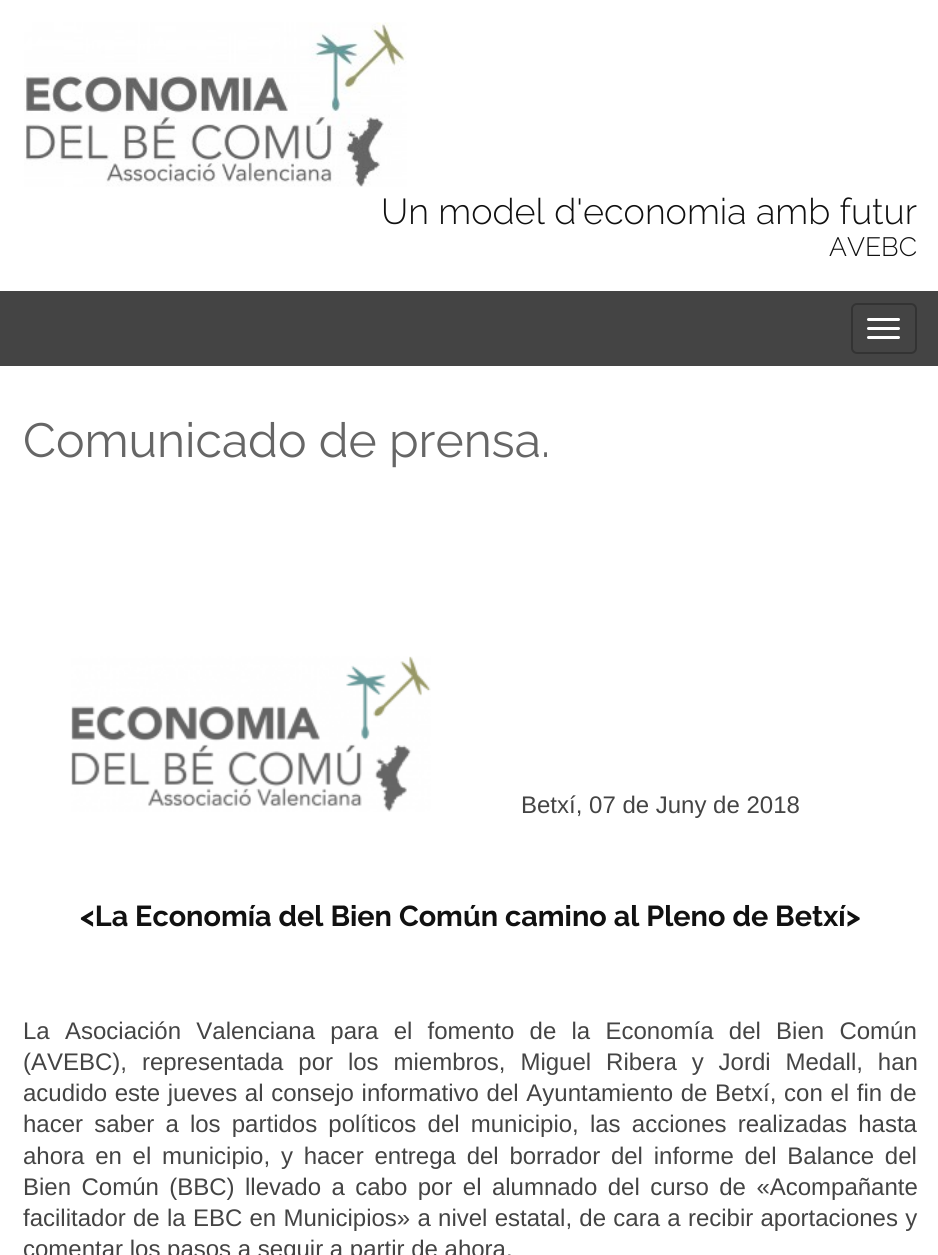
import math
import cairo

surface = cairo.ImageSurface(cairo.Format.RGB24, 938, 1255)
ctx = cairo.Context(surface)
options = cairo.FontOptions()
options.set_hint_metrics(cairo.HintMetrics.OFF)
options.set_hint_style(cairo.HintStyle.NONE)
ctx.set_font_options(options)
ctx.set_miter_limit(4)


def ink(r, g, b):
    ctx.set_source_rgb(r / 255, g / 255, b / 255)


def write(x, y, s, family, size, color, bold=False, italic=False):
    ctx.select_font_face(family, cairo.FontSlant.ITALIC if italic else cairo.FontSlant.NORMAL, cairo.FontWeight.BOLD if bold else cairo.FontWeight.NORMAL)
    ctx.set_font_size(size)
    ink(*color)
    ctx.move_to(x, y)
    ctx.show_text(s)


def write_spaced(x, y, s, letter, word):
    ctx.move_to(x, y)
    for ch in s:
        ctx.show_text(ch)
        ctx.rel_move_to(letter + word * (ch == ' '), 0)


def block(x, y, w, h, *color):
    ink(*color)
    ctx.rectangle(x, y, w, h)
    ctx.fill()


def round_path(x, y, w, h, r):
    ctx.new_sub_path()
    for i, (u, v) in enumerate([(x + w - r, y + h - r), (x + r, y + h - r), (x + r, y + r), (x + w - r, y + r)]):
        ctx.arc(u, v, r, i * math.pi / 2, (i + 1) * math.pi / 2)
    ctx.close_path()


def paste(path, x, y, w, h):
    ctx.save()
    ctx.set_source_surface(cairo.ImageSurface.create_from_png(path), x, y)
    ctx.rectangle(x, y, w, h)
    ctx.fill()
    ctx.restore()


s1 = dict(family="Raleway Light", size=36, color=(17, 17, 17))
s2 = dict(family="Raleway Light", size=26.5, color=(17, 17, 17))
s3 = dict(family="Raleway", size=48, color=(102, 102, 102))
s4 = dict(family="Liberation Sans", size=24, color=(68, 68, 68))
s5 = dict(family="Raleway", size=28.8, color=(17, 17, 17), bold=True)

ink(255, 255, 255)
ctx.paint()
paste("pic1.png", 24, 22, 383, 165)
write(381, 224, "Un model d'economia amb futur", **s1)
write(829, 256, "AVEBC", **s2)
block(0, 291, 938, 75, 68, 68, 68)
round_path(852, 304, 64, 49, 5)
ink(51, 51, 51)
ctx.stroke()
ink(255, 255, 255)
round_path(867, 318, 33, 3, 1.5)
ctx.fill()
round_path(867, 327, 33, 3, 1.5)
ctx.fill()
round_path(867, 336, 33, 3, 1.5)
ctx.fill()
write(23, 457, "Comunicado de prensa.", **s3)
paste("pic2.png", 71, 656, 360, 156)
write(521, 813, "Betxí, 07 de Juny de 2018", **s4)
write(80, 926, "<La Economía del Bien Común camino al Pleno de Betxí>", **s5)
ctx.select_font_face("Liberation Sans")
ctx.set_font_size(24)
ink(68, 68, 68)
write_spaced(23, 1039, "La Asociación Valenciana para el fomento de la Economía del Bien Común", 0, 8.6)
write_spaced(23, 1070, "(AVEBC), representada por los miembros, Miguel Ribera y Jordi Medall, han", 0, 8.25)
write_spaced(23, 1101, "acudido este jueves al consejo informativo del Ayuntamiento de Betxí, con el fin de", 0, 1)
write_spaced(23, 1132, "hacer saber a los partidos políticos del municipio, las acciones realizadas hasta", 0, 4.5)
write_spaced(23, 1164, "ahora en el municipio, y hacer entrega del borrador del informe del Balance del", 0, 4.1)
write_spaced(23, 1195, "Bien Común (BBC) llevado a cabo por el alumnado del curso de «Acompañante", 0, 3.75)
write_spaced(23, 1226, "facilitador de la EBC en Municipios» a nivel estatal, de cara a recibir aportaciones y", 0, 0.6)
write(23, 1257, "comentar los pasos a seguir a partir de ahora.", **s4)
surface.write_to_png("screenshot.png")
